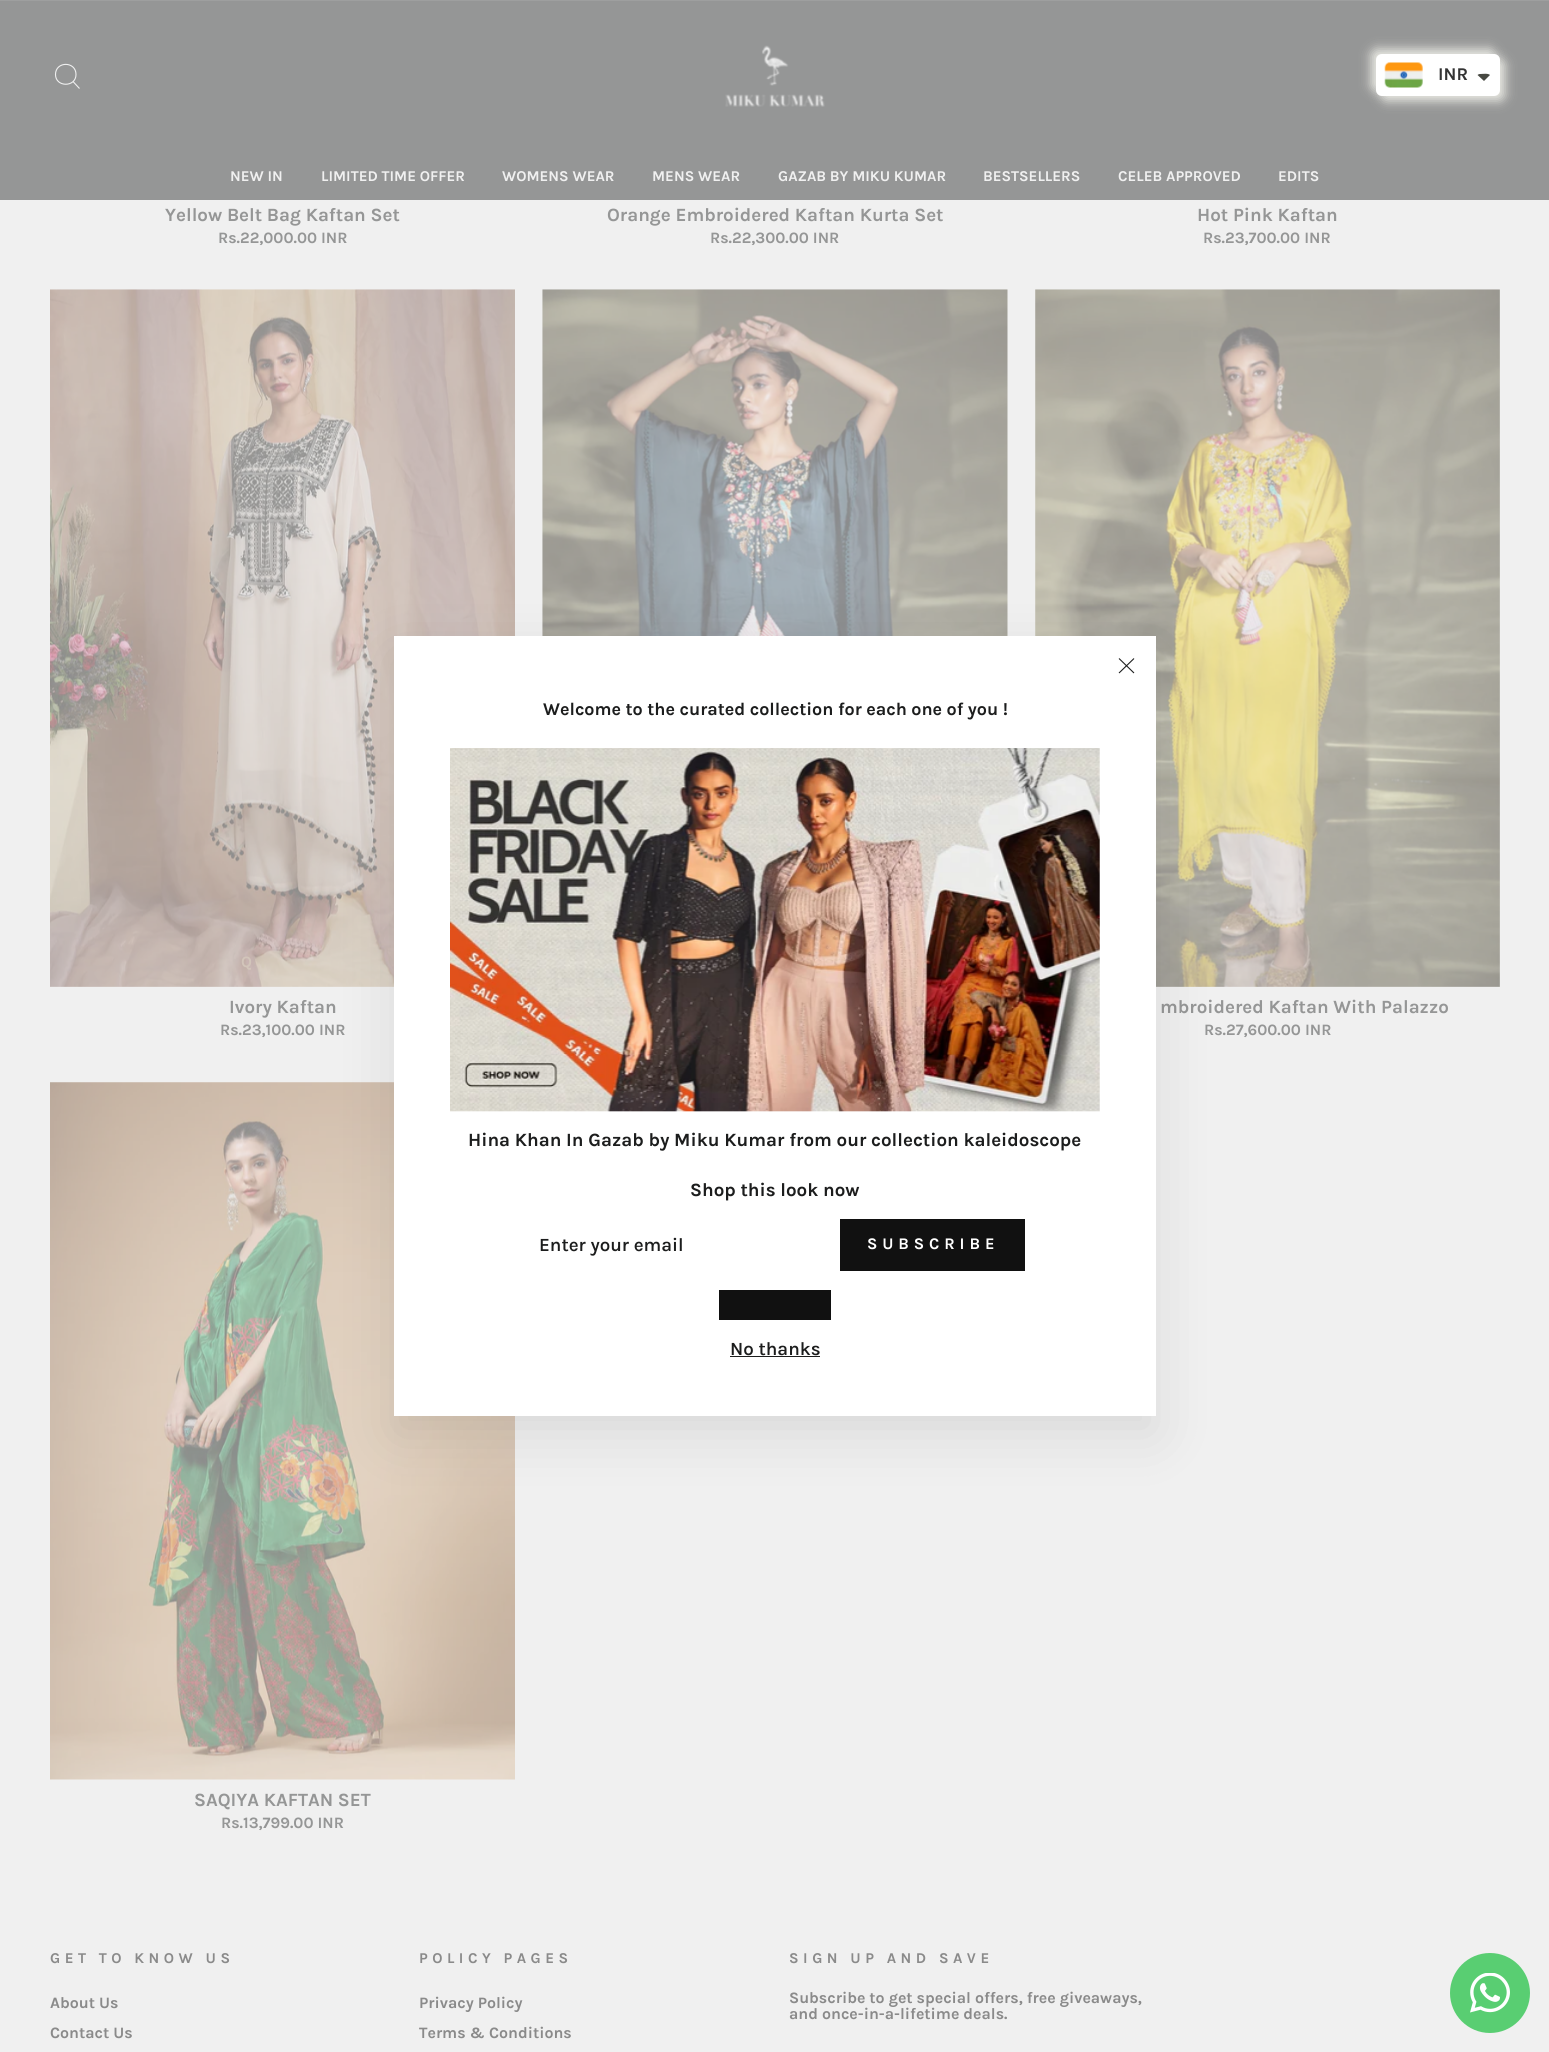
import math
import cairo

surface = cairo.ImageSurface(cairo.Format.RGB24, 1549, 2052)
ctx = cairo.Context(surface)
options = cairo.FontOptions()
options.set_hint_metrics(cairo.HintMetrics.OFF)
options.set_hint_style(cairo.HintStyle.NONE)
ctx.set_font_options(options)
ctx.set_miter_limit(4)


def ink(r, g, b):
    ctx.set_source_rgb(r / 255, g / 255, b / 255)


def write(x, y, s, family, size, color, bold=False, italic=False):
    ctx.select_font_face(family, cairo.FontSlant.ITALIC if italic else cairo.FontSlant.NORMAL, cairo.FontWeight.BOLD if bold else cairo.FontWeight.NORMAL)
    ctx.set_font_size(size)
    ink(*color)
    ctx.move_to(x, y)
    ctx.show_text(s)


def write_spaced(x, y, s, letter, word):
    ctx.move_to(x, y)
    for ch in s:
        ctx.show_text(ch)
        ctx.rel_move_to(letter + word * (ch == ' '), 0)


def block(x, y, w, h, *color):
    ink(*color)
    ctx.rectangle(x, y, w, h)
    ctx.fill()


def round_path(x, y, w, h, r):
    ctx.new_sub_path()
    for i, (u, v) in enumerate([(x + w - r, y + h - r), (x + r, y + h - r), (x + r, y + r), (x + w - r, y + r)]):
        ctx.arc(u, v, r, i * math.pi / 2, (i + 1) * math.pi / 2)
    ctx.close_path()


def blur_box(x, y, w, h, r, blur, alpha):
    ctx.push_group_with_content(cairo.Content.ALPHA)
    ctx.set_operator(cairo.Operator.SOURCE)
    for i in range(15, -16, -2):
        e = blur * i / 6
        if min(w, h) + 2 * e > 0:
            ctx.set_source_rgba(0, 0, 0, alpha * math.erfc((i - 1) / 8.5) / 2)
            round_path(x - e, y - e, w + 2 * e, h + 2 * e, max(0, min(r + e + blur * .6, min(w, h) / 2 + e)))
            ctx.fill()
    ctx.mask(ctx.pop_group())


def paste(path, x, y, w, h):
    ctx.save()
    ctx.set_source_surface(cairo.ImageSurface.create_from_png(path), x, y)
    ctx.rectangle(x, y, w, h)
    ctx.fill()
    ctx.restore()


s1 = dict(family="Karla", size=18, color=(51, 51, 51), bold=True)
s2 = dict(family="Karla", size=15, color=(240, 240, 240), bold=True)
s3 = dict(family="Karla", size=18.75, color=(149, 150, 150), bold=True)
s4 = dict(family="Karla", size=15.9, color=(149, 150, 150), bold=True)
s5 = dict(family="Karla", size=15.9, color=(210, 197, 186), bold=True)
s6 = dict(family="Karla", size=15.9, color=(138, 138, 138), bold=True)
s7 = dict(family="Karla", size=17.9, color=(28, 29, 29), bold=True)
s8 = dict(family="Karla", size=18.75, color=(28, 29, 29), bold=True)
s9 = dict(family="Karla SemiBold", size=18.75, color=(28, 29, 29))

ink(240, 240, 240)
ctx.paint()
block(0, 1, 1549, 199, 149, 150, 150)
ink(232, 232, 226)
blur_box(1371, 49, 124, 42, 6, 5.5, 1)
blur_box(1381, 59, 124, 42, 6, 5.5, 1)
ink(255, 255, 255)
round_path(1376, 54, 124, 42, 6)
ctx.fill()
paste("pic1.png", 1384, 62, 39, 26)
write(1438, 80, "INR", **s1)
ink(71, 73, 66)
ctx.new_path()
ctx.move_to(1480, 74)
ctx.curve_to(1482.5, 74, 1488, 73, 1490, 75)
ctx.line_to(1484, 81)
ctx.line_to(1477.5, 75)
ctx.curve_to(1478, 74.5, 1479, 74, 1480, 74)
ctx.close_path()
ctx.fill()
block(0, 0, 1549, 1, 158, 159, 159)
ctx.new_path()
ctx.move_to(76, 74.5)
ctx.curve_to(76, 87.5, 55.5, 87.5, 55.5, 74.5)
ctx.curve_to(55.5, 61, 76, 61, 76, 74.5)
ctx.close_path()
ctx.move_to(79.5, 88.5)
ctx.line_to(73, 81.5)
ink(240, 240, 240)
ctx.set_line_width(1.1)
ctx.stroke()
paste("pic2.png", 725, 45, 100, 62)
write(230, 181, "NEW IN", **s2)
write(321, 181, "LIMITED TIME OFFER", **s2)
write(502, 181, "WOMENS WEAR", **s2)
write(652, 181, "MENS WEAR", **s2)
write(778, 181, "GAZAB BY MIKU KUMAR", **s2)
write(983, 181, "BESTSELLERS", **s2)
write(1118, 181, "CELEB APPROVED", **s2)
write(1278, 181, "EDITS", **s2)
write(165, 221, "Yellow Belt Bag Kaftan Set", **s3)
write(218, 243, "Rs.22,000.00 INR", **s4)
write(607, 221, "Orange Embroidered Kaftan Kurta Set", **s3)
write(710, 243, "Rs.22,300.00 INR", **s4)
write(1197, 221, "Hot Pink Kaftan", **s3)
write(1203, 243, "Rs.23,700.00 INR", **s4)
paste("pic3.png", 542, 289, 466, 347)
paste("pic4.png", 50, 289, 465, 698)
write(241, 967, "Q", **s5)
write(229, 1013, "Ivory Kaftan", **s3)
write(220, 1035, "Rs.23,100.00 INR", **s4)
paste("pic5.png", 1035, 289, 465, 698)
write(1160, 1013, "mbroidered Kaftan With Palazzo", **s3)
write(1204, 1035, "Rs.27,600.00 INR", **s4)
paste("pic6.png", 50, 1082, 465, 698)
write(194, 1806, "SAQIYA KAFTAN SET", **s3)
write(221, 1828, "Rs.13,799.00 INR", **s4)
ctx.set_font_size(15)
ink(138, 138, 138)
write_spaced(50, 1963, "GET TO KNOW US", 4.5, 0)
write(50, 2008, "About Us", **s6)
write(50, 2038, "Contact Us", **s6)
ctx.set_font_size(15)
write_spaced(419, 1963, "POLICY PAGES", 4.5, 0)
write(419, 2008, "Privacy Policy", **s6)
write(419, 2038, "Terms & Conditions", **s6)
ctx.set_font_size(15)
write_spaced(789, 1963, "SIGN UP AND SAVE", 4.5, 0)
write(789, 2003, "Subscribe to get special offers, free giveaways,", **s6)
write(789, 2019, "and once-in-a-lifetime deals.", **s6)
ink(0, 0, 0)
blur_box(394, 655, 762, 780, 0, 28, 0.1)
block(394, 636, 762, 780, 255, 255, 255)
ctx.new_path()
ctx.move_to(1119, 658.5)
ctx.line_to(1134, 673)
ctx.move_to(1134, 658.5)
ctx.line_to(1119, 673)
ink(28, 29, 29)
ctx.stroke()
write(543, 715, "Welcome to the curated collection for each one of you !", **s7)
paste("pic7.png", 450, 748, 650, 364)
write(468, 1146, "Hina Khan In Gazab by Miku Kumar from our collection kaleidoscope", **s8)
write(690, 1196, "Shop this look now", **s8)
write(539, 1251, "Enter your email", **s9)
block(840, 1219, 185, 52, 17, 17, 17)
ctx.select_font_face("Karla", cairo.FontSlant.NORMAL, cairo.FontWeight.BOLD)
ctx.set_font_size(16.25)
ink(255, 255, 255)
write_spaced(867, 1249, "SUBSCRIBE", 4.9, 0)
block(719, 1290, 112, 30, 17, 17, 17)
write(730, 1355, "No thanks", **s9)
block(730, 1356, 90, 1, 28, 29, 29)
ink(89, 206, 114)
ctx.new_path()
ctx.arc(1490, 1993, 40, 0, 2 * math.pi)
ctx.fill()
paste("pic8.png", 1470, 1973, 40, 40)
surface.write_to_png("screenshot.png")
